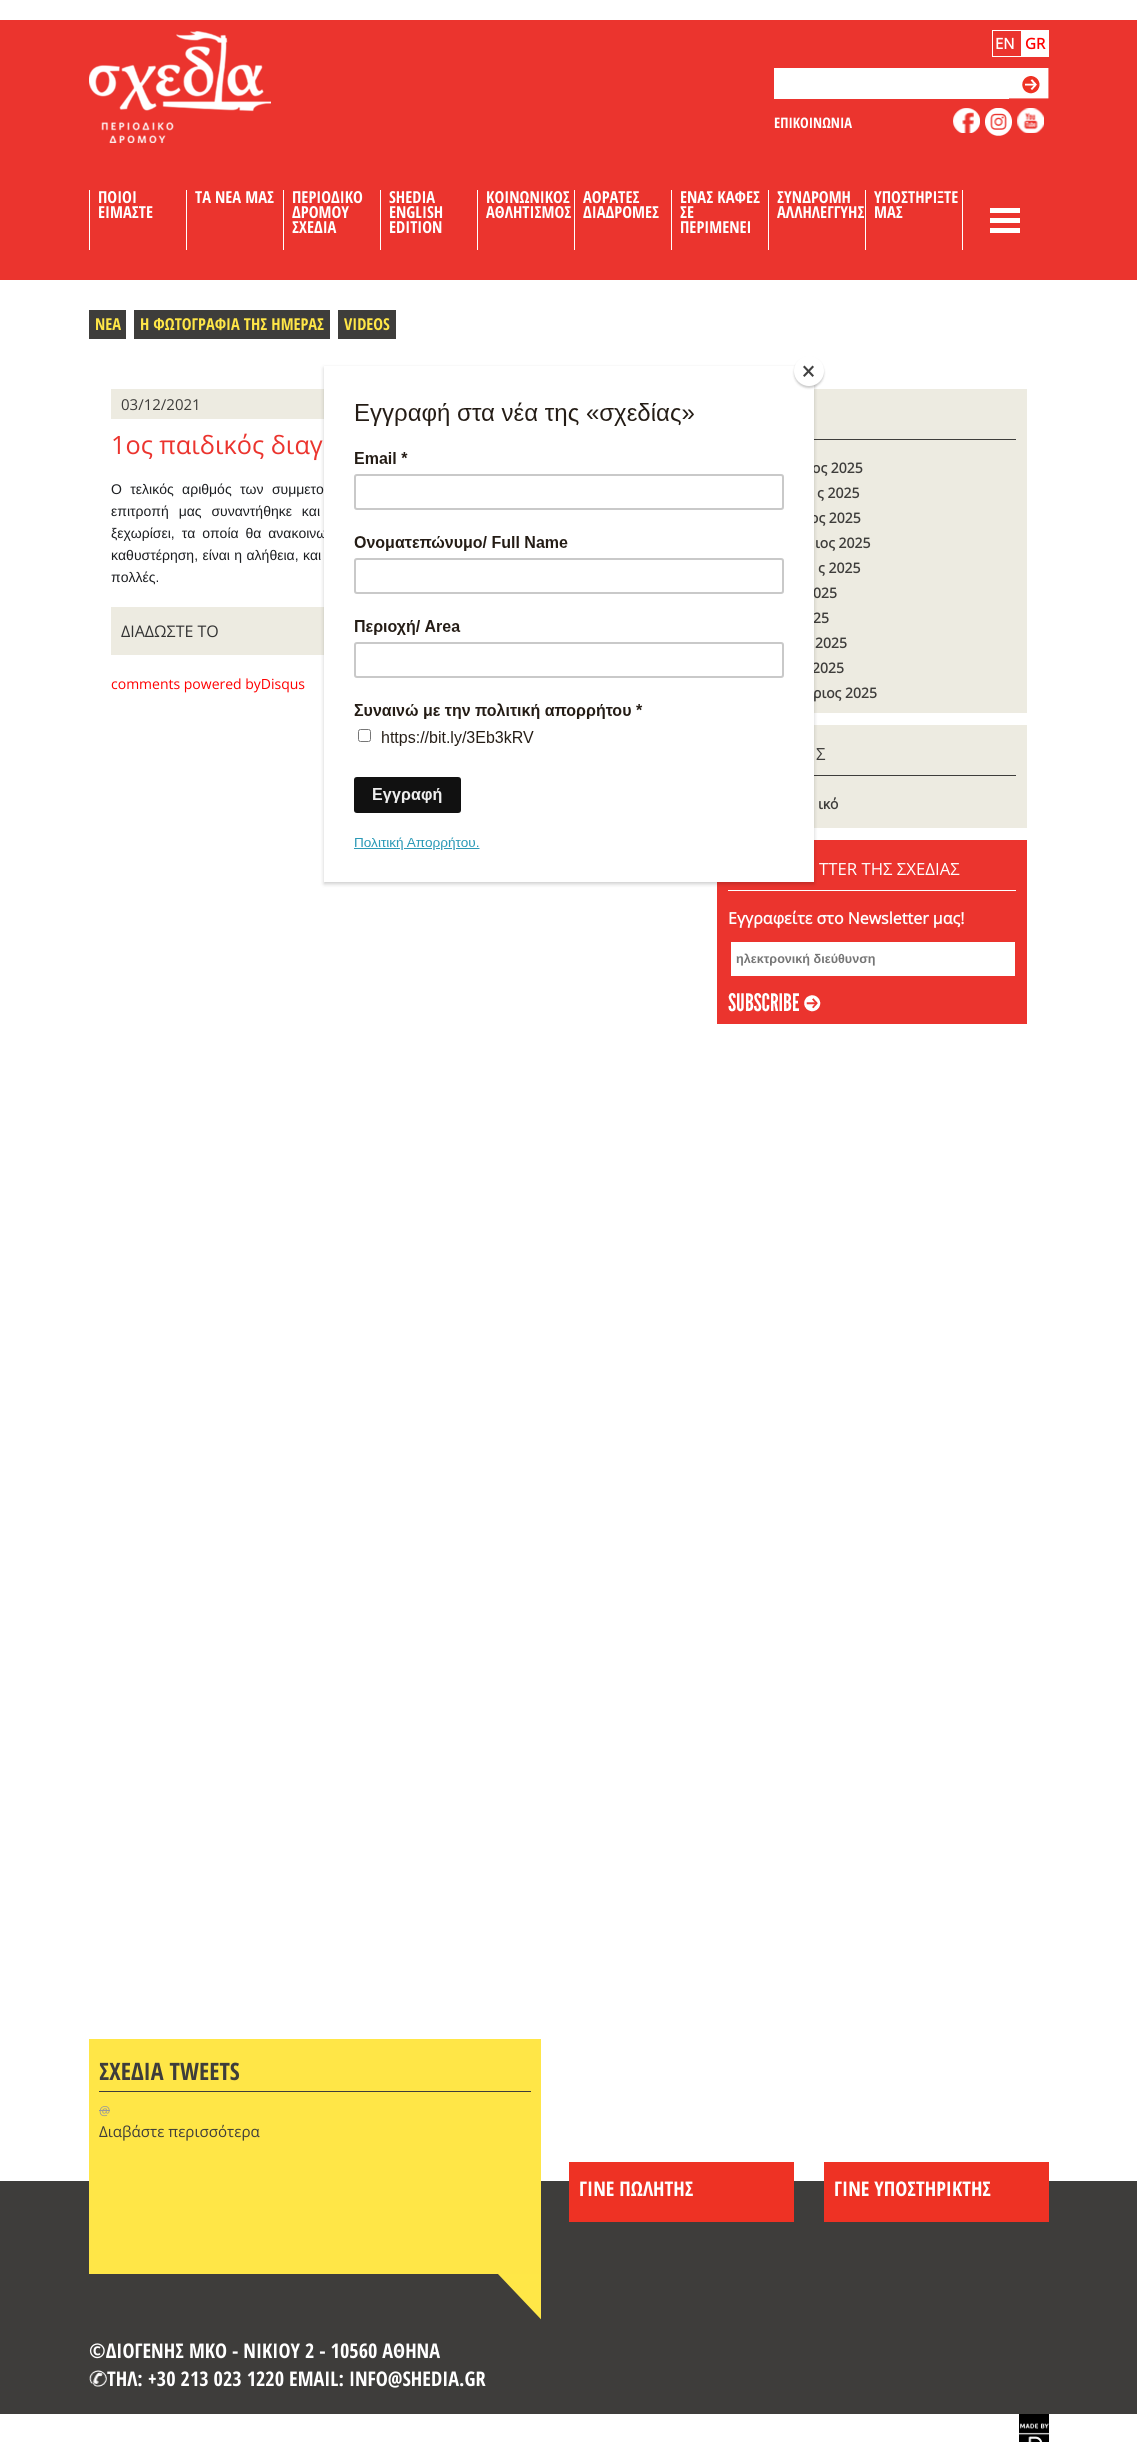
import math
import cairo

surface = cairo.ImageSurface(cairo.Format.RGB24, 1137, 2442)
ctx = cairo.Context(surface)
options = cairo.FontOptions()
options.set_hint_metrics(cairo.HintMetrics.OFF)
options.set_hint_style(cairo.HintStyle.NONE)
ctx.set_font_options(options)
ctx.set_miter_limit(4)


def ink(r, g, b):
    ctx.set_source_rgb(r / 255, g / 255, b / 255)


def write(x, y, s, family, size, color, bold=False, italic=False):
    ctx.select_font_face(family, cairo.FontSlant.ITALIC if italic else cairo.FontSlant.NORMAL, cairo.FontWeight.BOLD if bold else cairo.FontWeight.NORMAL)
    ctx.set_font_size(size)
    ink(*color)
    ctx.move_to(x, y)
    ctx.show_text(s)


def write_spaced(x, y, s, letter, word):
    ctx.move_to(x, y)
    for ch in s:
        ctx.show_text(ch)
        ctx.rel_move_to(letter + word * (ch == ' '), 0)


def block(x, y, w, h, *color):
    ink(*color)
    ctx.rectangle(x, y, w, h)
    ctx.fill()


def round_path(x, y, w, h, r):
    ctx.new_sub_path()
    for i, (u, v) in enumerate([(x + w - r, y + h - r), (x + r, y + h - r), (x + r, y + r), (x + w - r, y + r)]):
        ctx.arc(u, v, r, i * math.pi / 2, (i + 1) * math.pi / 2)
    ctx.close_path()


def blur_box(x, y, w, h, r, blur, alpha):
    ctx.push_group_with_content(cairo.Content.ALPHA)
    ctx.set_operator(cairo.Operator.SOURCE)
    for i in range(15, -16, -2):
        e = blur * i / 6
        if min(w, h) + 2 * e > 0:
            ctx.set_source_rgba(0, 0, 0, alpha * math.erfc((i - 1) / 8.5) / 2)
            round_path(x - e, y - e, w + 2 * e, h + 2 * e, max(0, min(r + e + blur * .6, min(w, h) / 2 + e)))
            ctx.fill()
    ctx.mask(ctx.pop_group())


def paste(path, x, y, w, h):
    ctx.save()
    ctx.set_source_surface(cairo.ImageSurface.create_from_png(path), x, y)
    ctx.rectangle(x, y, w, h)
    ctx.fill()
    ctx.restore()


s1 = dict(family="Open Sans", size=15, color=(255, 255, 255), bold=True)
s2 = dict(family="Open Sans", size=15, color=(255, 0, 0), bold=True)
s3 = dict(family="Open Sans Condensed", size=14.5, color=(255, 255, 255), bold=True)
s4 = dict(family="Open Sans Condensed", size=16.5, color=(255, 255, 255), bold=True)
s5 = dict(family="Open Sans Condensed", size=16.4, color=(255, 230, 71), bold=True)
s6 = dict(family="Open Sans", size=15, color=(62, 61, 59))
s7 = dict(family="Open Sans", size=25.25, color=(235, 52, 46))
s8 = dict(family="Liberation Sans", size=14, color=(28, 30, 33))
s9 = dict(family="Open Sans", size=16, color=(51, 51, 51))
s10 = dict(family="Open Sans", size=14, color=(255, 0, 0))
s11 = dict(family="Open Sans", size=14, color=(62, 61, 59), bold=True)
s12 = dict(family="Open Sans", size=16.75, color=(62, 61, 59))
s13 = dict(family="Open Sans", size=16.75, color=(255, 255, 255))
s14 = dict(family="Open Sans", size=16, color=(255, 255, 255), bold=True)
s15 = dict(family="Liberation Sans", size=12.6, color=(117, 117, 117), bold=True)
s16 = dict(family="Open Sans Condensed", size=24, color=(62, 61, 59), bold=True)
s17 = dict(family="Open Sans", size=12.6, color=(153, 153, 153))
s18 = dict(family="Open Sans", size=15.1, color=(62, 61, 59))
s19 = dict(family="Open Sans Condensed", size=20.2, color=(255, 255, 255), bold=True)

ink(255, 255, 255)
ctx.paint()
block(0, 20, 1137, 260, 235, 52, 46)
paste("pic1.png", 89, 31, 182, 112)
write(995, 49, "EN", **s1)
block(992, 30, 30, 1, 255, 255, 255)
block(992, 56, 23, 1, 255, 255, 255)
block(992, 30, 1, 27, 255, 255, 255)
block(1021, 30, 28, 27, 255, 255, 255)
block(1015, 56, 7, 1, 255, 255, 255)
write(1025, 49, "GR", **s2)
block(774, 68, 235, 31, 255, 255, 255)
paste("pic2.png", 1009, 68, 40, 31)
write(774, 128, "ΕΠΙΚΟΙΝΩΝΙΑ", **s3)
paste("pic3.png", 953, 108, 27, 25)
paste("pic4.png", 985, 108, 27, 28)
paste("pic5.png", 1017, 108, 27, 25)
block(186, 190, 1, 60, 255, 255, 255)
block(89, 190, 1, 60, 255, 255, 255)
write(98, 203, "ΠΟΙΟΙ", **s4)
write(98, 218, "ΕΙΜΑΣΤΕ", **s4)
block(283, 190, 1, 60, 255, 255, 255)
write(195, 203, "ΤΑ ΝΕΑ ΜΑΣ", **s4)
block(380, 190, 1, 60, 255, 255, 255)
write(292, 203, "ΠΕΡΙΟΔΙΚΟ", **s4)
write(292, 218, "ΔΡΟΜΟΥ", **s4)
write(292, 233, "ΣΧΕΔΙΑ", **s4)
block(477, 190, 1, 60, 255, 255, 255)
write(389, 203, "SHEDIA", **s4)
write(389, 218, "ENGLISH", **s4)
write(389, 233, "EDITION", **s4)
block(574, 190, 1, 60, 255, 255, 255)
write(486, 203, "ΚΟΙΝΩΝΙΚΟΣ", **s4)
write(486, 218, "ΑΘΛΗΤΙΣΜΟΣ", **s4)
block(671, 190, 1, 60, 255, 255, 255)
write(583, 203, "ΑΟΡΑΤΕΣ", **s4)
write(583, 218, "ΔΙΑΔΡΟΜΕΣ", **s4)
block(768, 190, 1, 60, 255, 255, 255)
write(680, 203, "ΕΝΑΣ ΚΑΦΕΣ", **s4)
write(680, 218, "ΣΕ", **s4)
write(680, 233, "ΠΕΡΙΜΕΝΕΙ", **s4)
block(865, 190, 1, 60, 255, 255, 255)
write(777, 203, "ΣΥΝΔΡΟΜΗ", **s4)
write(777, 218, "ΑΛΛΗΛΕΓΓΥΗΣ", **s4)
block(962, 190, 1, 60, 255, 255, 255)
write(874, 203, "ΥΠΟΣΤΗΡΙΞΤΕ", **s4)
write(874, 218, "ΜΑΣ", **s4)
block(990, 208, 30, 5, 255, 255, 255)
block(990, 218, 30, 5, 255, 255, 255)
block(990, 228, 30, 5, 255, 255, 255)
block(89, 310, 37, 29, 62, 61, 59)
write(95, 330, "ΝΕΑ", **s5)
block(134, 310, 196, 29, 62, 61, 59)
write(140, 330, "Η ΦΩΤΟΓΡΑΦΙΑ ΤΗΣ ΗΜΕΡΑΣ", **s5)
block(338, 310, 58, 29, 62, 61, 59)
write(344, 330, "VIDEOS", **s5)
block(111, 389, 213, 30, 237, 235, 225)
write(121, 410, "03/12/2021", **s6)
write(111, 454, "1ος παιδικός διαγ", **s7)
ctx.select_font_face("Liberation Sans")
ctx.set_font_size(14)
ink(28, 30, 33)
write_spaced(111, 494, "Ο τελικός αριθμός των συμμετο", 0, 4.5)
write_spaced(111, 516, "επιτροπή μας συναντήθηκε και", 0, 6)
write_spaced(111, 538, "ξεχωρίσει, τα οποία θα ανακοινω", 0, 3)
write_spaced(111, 560, "καθυστέρηση, είναι η αλήθεια, και", 0, 0.5)
write(111, 582, "πολλές.", **s8)
block(111, 607, 213, 48, 237, 235, 225)
write(121, 637, "ΔΙΑΔΩΣΤΕ ΤΟ", **s9)
write(111, 689, "comments powered byDisqus", **s10)
block(814, 389, 213, 324, 237, 235, 225)
block(814, 439, 202, 1, 62, 61, 59)
write(812, 473, "ος 2025", **s11)
write(817, 498, "ς 2025", **s11)
write(810, 523, "ος 2025", **s11)
write(815, 548, "ιος 2025", **s11)
write(818, 573, "ς 2025", **s11)
write(813, 598, "025", **s11)
write(813, 623, "25", **s11)
write(815, 648, "2025", **s11)
write(812, 673, "2025", **s11)
write(813, 698, "ριος 2025", **s11)
block(814, 725, 213, 103, 237, 235, 225)
block(814, 775, 202, 1, 62, 61, 59)
write(816, 760, "Σ", **s12)
write(818, 809, "ικό", **s11)
block(717, 840, 310, 184, 235, 52, 46)
block(728, 890, 288, 1, 255, 255, 255)
write(819, 875, "TTER ΤΗΣ ΣΧΕΔΙΑΣ", **s13)
write(728, 924, "Εγγραφείτε στο Newsletter μας!", **s14)
block(731, 942, 284, 34, 255, 255, 255)
write(736, 963, "ηλεκτρονική διεύθυνση", **s15)
paste("pic6.png", 728, 993, 93, 19)
block(0, 2181, 1137, 233, 62, 61, 59)
block(89, 2039, 452, 235, 255, 230, 71)
block(99, 2091, 432, 1, 62, 61, 59)
write(99, 2080, "ΣΧΕΔΙΑ TWEETS", **s16)
write(99, 2115, "@", **s17)
block(99, 2110, 11, 1, 153, 153, 153)
write(99, 2137, "Διαβάστε περισσότερα", **s18)
paste("pic7.png", 498, 2274, 43, 46)
block(569, 2162, 225, 60, 238, 50, 36)
write(579, 2196, "ΓΙΝΕ ΠΩΛΗΤΗΣ", **s19)
block(824, 2162, 225, 60, 238, 50, 36)
write(834, 2196, "ΓΙΝΕ ΥΠΟΣΤΗΡΙΚΤΗΣ", **s19)
write(89, 2358, "©ΔΙΟΓΕΝΗΣ ΜΚΟ - ΝΙΚΙΟΥ 2 - 10560 ΑΘΗΝΑ", **s19)
paste("pic8.png", 89, 2370, 18, 17)
write(107, 2386, "ΤΗΛ: +30 213 023 1220 EMAIL: INFO@SHEDIA.GR", **s19)
paste("pic9.png", 1019, 2414, 30, 28)
ctx.save()
ctx.set_fill_rule(cairo.FillRule.EVEN_ODD)
ctx.new_path()
ctx.move_to(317, 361)
ctx.line_to(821, 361)
ctx.line_to(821, 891)
ctx.line_to(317, 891)
ctx.close_path()
ctx.move_to(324, 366)
ctx.line_to(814, 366)
ctx.line_to(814, 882)
ctx.line_to(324, 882)
ctx.close_path()
ctx.clip()
ink(0, 0, 0)
blur_box(324, 368, 490, 516, 0, 2, 0.2)
ctx.restore()
paste("pic10.png", 324, 389, 490, 493)
ink(0, 0, 0)
blur_box(794, 358, 30, 30, 15, 1, 0.2)
ink(255, 255, 255)
ctx.arc(809, 371, 15, 0, 2 * math.pi)
ctx.fill()
ink(65, 65, 65)
ctx.new_path()
ctx.move_to(812.5, 365.5)
ctx.line_to(814, 367)
ctx.line_to(804.5, 377)
ctx.line_to(803, 375.5)
ctx.close_path()
ctx.fill()
ctx.new_path()
ctx.move_to(803, 367)
ctx.line_to(804.5, 365.5)
ctx.line_to(814, 375.5)
ctx.line_to(812.5, 377)
ctx.close_path()
ctx.fill()
surface.write_to_png("screenshot.png")
